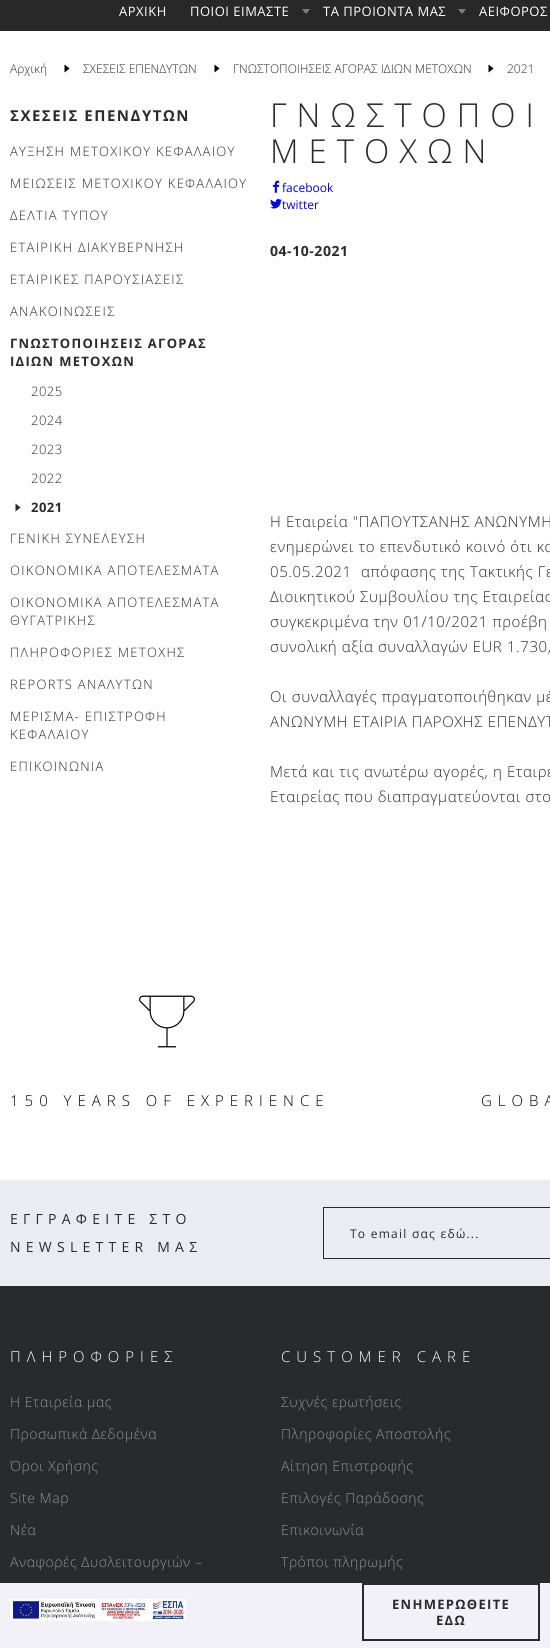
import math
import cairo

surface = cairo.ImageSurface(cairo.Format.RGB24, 550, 1648)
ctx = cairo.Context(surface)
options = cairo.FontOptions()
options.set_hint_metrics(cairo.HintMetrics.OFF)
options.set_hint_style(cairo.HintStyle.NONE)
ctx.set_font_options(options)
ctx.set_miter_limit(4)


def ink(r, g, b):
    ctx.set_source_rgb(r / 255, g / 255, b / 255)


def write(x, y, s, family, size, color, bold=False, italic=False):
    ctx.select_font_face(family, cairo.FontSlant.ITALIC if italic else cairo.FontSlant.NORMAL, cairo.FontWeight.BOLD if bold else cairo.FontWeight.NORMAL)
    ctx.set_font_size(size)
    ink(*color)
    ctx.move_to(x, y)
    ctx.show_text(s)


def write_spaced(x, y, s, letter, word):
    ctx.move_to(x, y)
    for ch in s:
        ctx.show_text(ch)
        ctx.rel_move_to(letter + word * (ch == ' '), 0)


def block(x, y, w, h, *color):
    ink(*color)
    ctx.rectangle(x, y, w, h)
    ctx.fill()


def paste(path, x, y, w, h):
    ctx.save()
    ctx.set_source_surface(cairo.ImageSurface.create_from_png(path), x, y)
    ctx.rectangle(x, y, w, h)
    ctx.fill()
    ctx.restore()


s1 = dict(family="Open Sans Light", size=12, color=(41, 42, 46))
s2 = dict(family="Open Sans", size=12, color=(0, 0, 238))

ink(255, 255, 255)
ctx.paint()
block(0, 0, 550, 31, 40, 40, 40)
ctx.select_font_face("Open Sans")
ctx.set_font_size(13)
ink(255, 255, 255)
write_spaced(119, 16, "ΑΡΧΙΚΗ", 0.5, 0)
write_spaced(190, 16, "ΠΟΙΟΙ ΕΙΜΑΣΤΕ", 0.5, 0)
ink(126, 126, 126)
ctx.new_path()
ctx.move_to(302, 9)
ctx.line_to(310, 9)
ctx.line_to(306, 14)
ctx.close_path()
ctx.fill()
ink(255, 255, 255)
write_spaced(323, 16, "ΤΑ ΠΡΟΙΟΝΤΑ ΜΑΣ", 0.5, 0)
ink(126, 126, 126)
ctx.new_path()
ctx.move_to(458, 9)
ctx.line_to(466, 9)
ctx.line_to(462, 14)
ctx.close_path()
ctx.fill()
ink(255, 255, 255)
write_spaced(479, 16, "ΑΕΙΦΟΡΟΣ", 0.5, 0)
write(10, 73, "Αρχική", **s1)
ink(0, 0, 0)
ctx.new_path()
ctx.move_to(64.5, 72.5)
ctx.line_to(64.5, 64.5)
ctx.line_to(69.5, 68.5)
ctx.close_path()
ctx.fill()
write(83, 73, "ΣΧΕΣΕΙΣ ΕΠΕΝΔΥΤΩΝ", **s1)
ink(0, 0, 0)
ctx.new_path()
ctx.move_to(214.5, 72.5)
ctx.line_to(214.5, 64.5)
ctx.line_to(219.5, 68.5)
ctx.close_path()
ctx.fill()
write(233, 73, "ΓΝΩΣΤΟΠΟΙΗΣΕΙΣ ΑΓΟΡΑΣ ΙΔΙΩΝ ΜΕΤΟΧΩΝ", **s1)
ink(0, 0, 0)
ctx.new_path()
ctx.move_to(488.5, 72.5)
ctx.line_to(488.5, 64.5)
ctx.line_to(493.5, 68.5)
ctx.close_path()
ctx.fill()
write(507, 73, "2021", **s1)
ctx.select_font_face("Open Sans", cairo.FontSlant.NORMAL, cairo.FontWeight.BOLD)
ctx.set_font_size(15)
write_spaced(10, 121, "ΣΧΕΣΕΙΣ ΕΠΕΝΔΥΤΩΝ", 1.5, 0)
ctx.select_font_face("Open Sans Light")
ctx.set_font_size(13)
write_spaced(10, 156, "ΑΥΞΗΣΗ ΜΕΤΟΧΙΚΟΥ ΚΕΦΑΛΑΙΟΥ", 1.3, 0)
write_spaced(10, 188, "ΜΕΙΩΣΕΙΣ ΜΕΤΟΧΙΚΟΥ ΚΕΦΑΛΑΙΟΥ", 1.3, 0)
write_spaced(10, 220, "ΔΕΛΤΙΑ ΤΥΠΟΥ", 1.3, 0)
write_spaced(10, 252, "ΕΤΑΙΡΙΚΗ ΔΙΑΚΥΒΕΡΝΗΣΗ", 1.3, 0)
write_spaced(10, 284, "ΕΤΑΙΡΙΚΕΣ ΠΑΡΟΥΣΙΑΣΕΙΣ", 1.3, 0)
write_spaced(10, 316, "ΑΝΑΚΟΙΝΩΣΕΙΣ", 1.3, 0)
ctx.select_font_face("Open Sans", cairo.FontSlant.NORMAL, cairo.FontWeight.BOLD)
write_spaced(10, 348, "ΓΝΩΣΤΟΠΟΙΗΣΕΙΣ ΑΓΟΡΑΣ", 1.3, 0)
write_spaced(10, 366, "ΙΔΙΩΝ ΜΕΤΟΧΩΝ", 1.3, 0)
ctx.select_font_face("Open Sans Light")
write_spaced(31, 396, "2025", 0.5, 0)
write_spaced(31, 425, "2024", 0.5, 0)
write_spaced(31, 454, "2023", 0.5, 0)
write_spaced(31, 483, "2022", 0.5, 0)
ctx.new_path()
ctx.move_to(15.5, 511.5)
ctx.line_to(15.5, 503.5)
ctx.line_to(20.5, 507.5)
ctx.close_path()
ctx.fill()
ctx.select_font_face("Open Sans", cairo.FontSlant.NORMAL, cairo.FontWeight.BOLD)
write_spaced(31, 512, "2021", 0.5, 0)
ctx.select_font_face("Open Sans Light")
write_spaced(10, 543, "ΓΕΝΙΚΗ ΣΥΝΕΛΕΥΣΗ", 1.3, 0)
write_spaced(10, 575, "ΟΙΚΟΝΟΜΙΚΑ ΑΠΟΤΕΛΕΣΜΑΤΑ", 1.3, 0)
write_spaced(10, 607, "ΟΙΚΟΝΟΜΙΚΑ ΑΠΟΤΕΛΕΣΜΑΤΑ", 1.3, 0)
write_spaced(10, 625, "ΘΥΓΑΤΡΙΚΗΣ", 1.3, 0)
write_spaced(10, 657, "ΠΛΗΡΟΦΟΡΙΕΣ ΜΕΤΟΧΗΣ", 1.3, 0)
write_spaced(10, 689, "REPORTS ΑΝΑΛΥΤΩΝ", 1.3, 0)
write_spaced(10, 721, "ΜΕΡΙΣΜΑ- ΕΠΙΣΤΡΟΦΗ", 1.3, 0)
write_spaced(10, 739, "ΚΕΦΑΛΑΙΟΥ", 1.3, 0)
write_spaced(10, 771, "ΕΠΙΚΟΙΝΩΝΙΑ", 1.3, 0)
ctx.set_font_size(33)
write_spaced(270, 127, "ΓΝΩΣΤΟΠΟΙ", 10, 0)
write_spaced(270, 163, "ΜΕΤΟΧΩΝ", 10, 0)
paste("pic1.png", 272, 180, 8, 13)
write(282, 192, "facebook", **s2)
paste("pic2.png", 270, 199, 12, 10)
write(282, 209, "twitter", **s2)
ctx.select_font_face("Open Sans", cairo.FontSlant.NORMAL, cairo.FontWeight.BOLD)
ctx.set_font_size(14)
ink(41, 42, 46)
write_spaced(270, 256, "04-10-2021", 0.55, 0)
ctx.select_font_face("Open Sans Light")
ctx.set_font_size(15)
write_spaced(270, 527, "Η Εταιρεία \"ΠΑΠΟΥΤΣΑΝΗΣ ΑΝΩΝΥΜΗ", 0.6, 0)
write_spaced(270, 552, "ενημερώνει το επενδυτικό κοινό ότι κα", 0.6, 0)
write_spaced(270, 577, "05.05.2021", 0.6, 0)
write_spaced(361, 577, "απόφασης της Τακτικής Γε", 0.6, 0)
write_spaced(270, 602, "Διοικητικού Συμβουλίου της Εταιρείας", 0.6, 0)
write_spaced(270, 627, "συγκεκριμένα την 01/10/2021 προέβη", 0.6, 0)
write_spaced(270, 652, "συνολική αξία συναλλαγών EUR 1.730,", 0.6, 0)
write_spaced(270, 702, "Οι συναλλαγές πραγματοποιήθηκαν μέ", 0.6, 0)
write_spaced(270, 727, "ΑΝΩΝΥΜΗ ΕΤΑΙΡΙΑ ΠΑΡΟΧΗΣ ΕΠΕΝΔΥΤ", 0.6, 0)
write_spaced(270, 777, "Μετά και τις ανωτέρω αγορές, η Εταιρε", 0.6, 0)
write_spaced(270, 802, "Εταιρείας που διαπραγματεύονται στο", 0.6, 0)
paste("pic3.png", 139, 995, 56, 53)
ink(0, 0, 0)
write_spaced(10, 1106, "150 YEARS OF EXPERIENCE", 6, 0)
write_spaced(481, 1106, "GLOBA", 6, 0)
block(0, 1180, 550, 106, 235, 236, 242)
ctx.select_font_face("Open Sans")
ctx.set_font_size(14)
ink(41, 42, 46)
write_spaced(10, 1224, "ΕΓΓΡΑΦΕΙΤΕ ΣΤΟ", 5.25, 0)
write_spaced(10, 1252, "NEWSLETTER ΜΑΣ", 5.25, 0)
ctx.rectangle(323.5, 1207.5, 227, 51)
ctx.set_line_width(1)
ctx.stroke()
ctx.set_font_size(12)
write_spaced(350, 1238, "Το email σας εδώ...", 1.25, 0)
block(0, 1286, 550, 297, 41, 42, 46)
ctx.select_font_face("Open Sans Light")
ctx.set_font_size(15)
ink(255, 255, 255)
write_spaced(10, 1362, "ΠΛΗΡΟΦΟΡΙΕΣ", 6, 0)
ctx.set_font_size(14)
ink(145, 145, 145)
write_spaced(10, 1407, "Η Εταιρεία μας", 0.55, 0)
write_spaced(10, 1439, "Προσωπικά Δεδομένα", 0.55, 0)
write_spaced(10, 1471, "Όροι Χρήσης", 0.55, 0)
write_spaced(10, 1503, "Site Map", 0.55, 0)
write_spaced(10, 1535, "Νέα", 0.55, 0)
write_spaced(10, 1567, "Αναφορές Δυσλειτουργιών –", 0.55, 0)
ctx.set_font_size(15)
ink(255, 255, 255)
write_spaced(281, 1362, "CUSTOMER CARE", 6, 0)
ctx.set_font_size(14)
ink(145, 145, 145)
write_spaced(281, 1407, "Συχνές ερωτήσεις", 0.55, 0)
write_spaced(281, 1439, "Πληροφορίες Αποστολής", 0.55, 0)
write_spaced(281, 1471, "Αίτηση Επιστροφής", 0.55, 0)
write_spaced(281, 1503, "Επιλογές Παράδοσης", 0.55, 0)
write_spaced(281, 1535, "Επικοινωνία", 0.55, 0)
write_spaced(281, 1567, "Τρόποι πληρωμής", 0.55, 0)
block(0, 1583, 550, 65, 242, 241, 247)
paste("pic4.png", 10, 1599, 176, 22)
ctx.rectangle(363, 1584, 176, 56)
ink(41, 42, 46)
ctx.set_line_width(2)
ctx.stroke()
ctx.select_font_face("Open Sans", cairo.FontSlant.NORMAL, cairo.FontWeight.BOLD)
ctx.set_font_size(13)
write_spaced(392, 1609, "ΕΝΗΜΕΡΩΘΕΙΤΕ", 1.3, 0)
write_spaced(436, 1625, "ΕΔΩ", 1.3, 0)
surface.write_to_png("screenshot.png")
